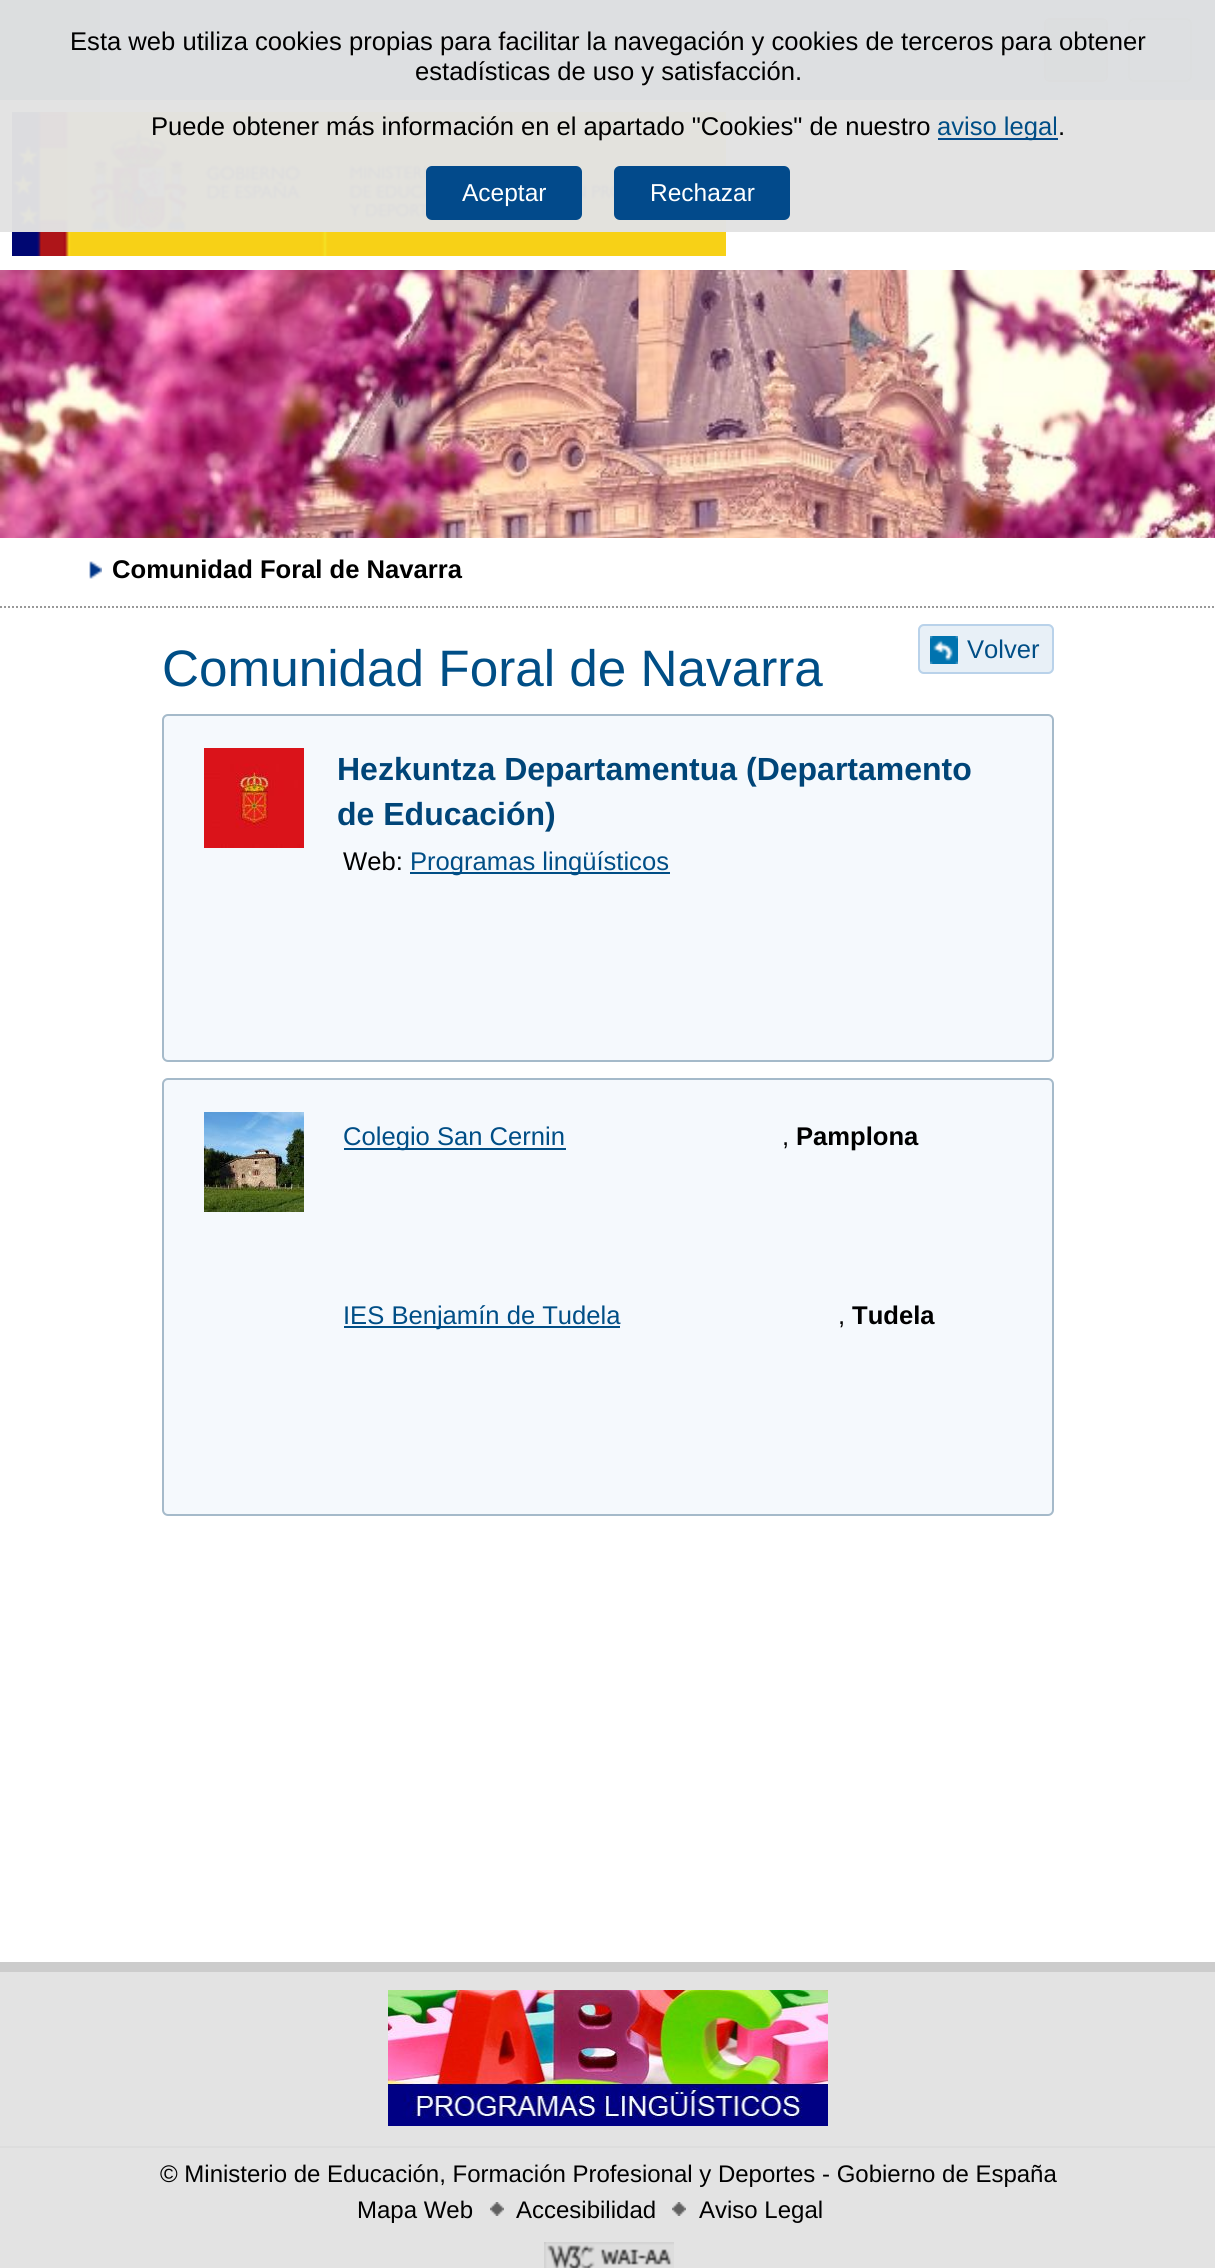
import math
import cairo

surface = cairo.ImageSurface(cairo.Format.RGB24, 1215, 2268)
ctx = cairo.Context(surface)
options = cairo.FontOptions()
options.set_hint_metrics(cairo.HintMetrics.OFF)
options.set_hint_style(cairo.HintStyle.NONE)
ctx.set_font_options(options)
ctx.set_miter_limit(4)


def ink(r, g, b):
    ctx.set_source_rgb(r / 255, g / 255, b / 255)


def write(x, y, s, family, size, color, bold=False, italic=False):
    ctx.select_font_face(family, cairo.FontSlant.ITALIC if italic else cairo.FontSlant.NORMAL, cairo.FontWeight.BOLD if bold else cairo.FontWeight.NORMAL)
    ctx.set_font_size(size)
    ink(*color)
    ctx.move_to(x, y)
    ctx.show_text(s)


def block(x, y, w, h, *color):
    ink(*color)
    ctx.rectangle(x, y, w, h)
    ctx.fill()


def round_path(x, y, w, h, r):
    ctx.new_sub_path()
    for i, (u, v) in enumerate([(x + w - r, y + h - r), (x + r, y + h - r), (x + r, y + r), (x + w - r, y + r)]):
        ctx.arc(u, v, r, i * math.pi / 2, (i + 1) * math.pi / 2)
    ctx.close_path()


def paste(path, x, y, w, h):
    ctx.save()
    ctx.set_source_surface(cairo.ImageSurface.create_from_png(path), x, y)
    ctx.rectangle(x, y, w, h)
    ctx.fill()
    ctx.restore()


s1 = dict(family="Liberation Sans", size=25.6, color=(0, 0, 0))
s2 = dict(family="Liberation Sans", size=25.6, color=(0, 78, 134))
s3 = dict(family="Liberation Sans", size=24.5, color=(255, 255, 255))
s4 = dict(family="Liberation Sans", size=25.6, color=(0, 0, 0), bold=True)
s5 = dict(family="Liberation Sans", size=51.25, color=(0, 78, 134))
s6 = dict(family="Liberation Sans", size=32, color=(0, 69, 120), bold=True)
s7 = dict(family="Liberation Sans", size=24, color=(0, 0, 0))

ink(227, 227, 227)
ctx.paint()
block(100, 0, 1115, 100, 39, 123, 186)
block(0, 0, 100, 100, 0, 63, 109)
round_path(1045, 19, 62, 62, 5)
ink(0, 36, 62)
ctx.stroke()
block(1046, 20, 60, 60, 0, 63, 109)
round_path(1129, 19, 62, 62, 5)
ctx.stroke()
block(0, 100, 1215, 170, 255, 255, 255)
paste("pic1.png", 12, 112, 714, 144)
ctx.set_source_rgba(0.886, 0.886, 0.886, 0.97)
ctx.rectangle(0, 0, 1215, 232)
ctx.fill()
write(70, 50, "Esta web utiliza cookies propias para facilitar la navegación y cookies de terceros para obtener", **s1)
write(415, 80, "estadísticas de uso y satisfacción.", **s1)
write(151, 135, "Puede obtener más información en el apartado \"Cookies\" de nuestro", **s1)
block(938, 138, 120, 2, 2, 74, 139)
write(937, 135, "aviso legal", **s2)
write(1058, 135, ".", **s1)
ink(2, 74, 139)
round_path(426, 166, 156, 54, 6)
ctx.fill()
write(462, 201, "Aceptar", **s3)
ink(2, 74, 139)
round_path(614, 166, 176, 54, 6)
ctx.fill()
write(650, 201, "Rechazar", **s3)
paste("pic2.png", 0, 270, 1215, 268)
block(0, 538, 1215, 1424, 255, 255, 255)
ctx.new_path()
ctx.move_to(0, 607)
ctx.line_to(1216, 607)
ink(153, 153, 153)
ctx.set_dash([2, 2])
ctx.stroke()
paste("pic3.png", 89, 561, 13, 18)
write(112, 578, "Comunidad Foral de Navarra", **s4)
write(162, 686, "Comunidad Foral de Navarra", **s5)
ink(232, 240, 247)
round_path(918, 624, 136, 50, 6)
ctx.fill()
paste("pic4.png", 930, 636, 28, 28)
round_path(919, 625, 134, 48, 5)
ink(185, 210, 234)
ctx.set_dash([])
ctx.stroke()
write(967, 658, "Volver", **s2)
ink(245, 249, 253)
round_path(163, 715, 890, 346, 5)
ctx.fill_preserve()
ink(165, 186, 202)
ctx.stroke()
paste("pic5.png", 204, 748, 100, 100)
write(337, 780, "Hezkuntza Departamentua (Departamento", **s6)
write(337, 825, "de Educación)", **s6)
write(343, 870, "Web:", **s1)
block(410, 872, 260, 2, 0, 78, 134)
write(410, 870, "Programas lingüísticos", **s2)
ink(245, 249, 253)
round_path(163, 1079, 890, 436, 5)
ctx.fill_preserve()
ink(165, 186, 202)
ctx.stroke()
paste("pic6.png", 204, 1112, 100, 100)
block(344, 1148, 222, 2, 0, 78, 134)
write(343, 1145, "Colegio San Cernin", **s2)
write(782, 1145, ",", **s1)
write(796, 1145, "Pamplona", **s4)
block(344, 1326, 276, 2, 0, 78, 134)
write(343, 1324, "IES Benjamín de Tudela", **s2)
write(838, 1324, ",", **s1)
write(852, 1324, "Tudela", **s4)
block(0, 1962, 1215, 10, 204, 204, 204)
block(0, 2146, 1215, 2, 221, 221, 221)
paste("pic7.png", 388, 1990, 440, 136)
write(160, 2182, "© Ministerio de Educación, Formación Profesional y Deportes - Gobierno de España", **s7)
paste("pic8.png", 490, 2202, 14, 14)
write(357, 2218, "Mapa Web", **s7)
paste("pic8.png", 672, 2202, 14, 14)
write(516, 2218, "Accesibilidad", **s7)
write(699, 2218, "Aviso Legal", **s7)
paste("pic9.png", 544, 2242, 130, 26)
surface.write_to_png("screenshot.png")
